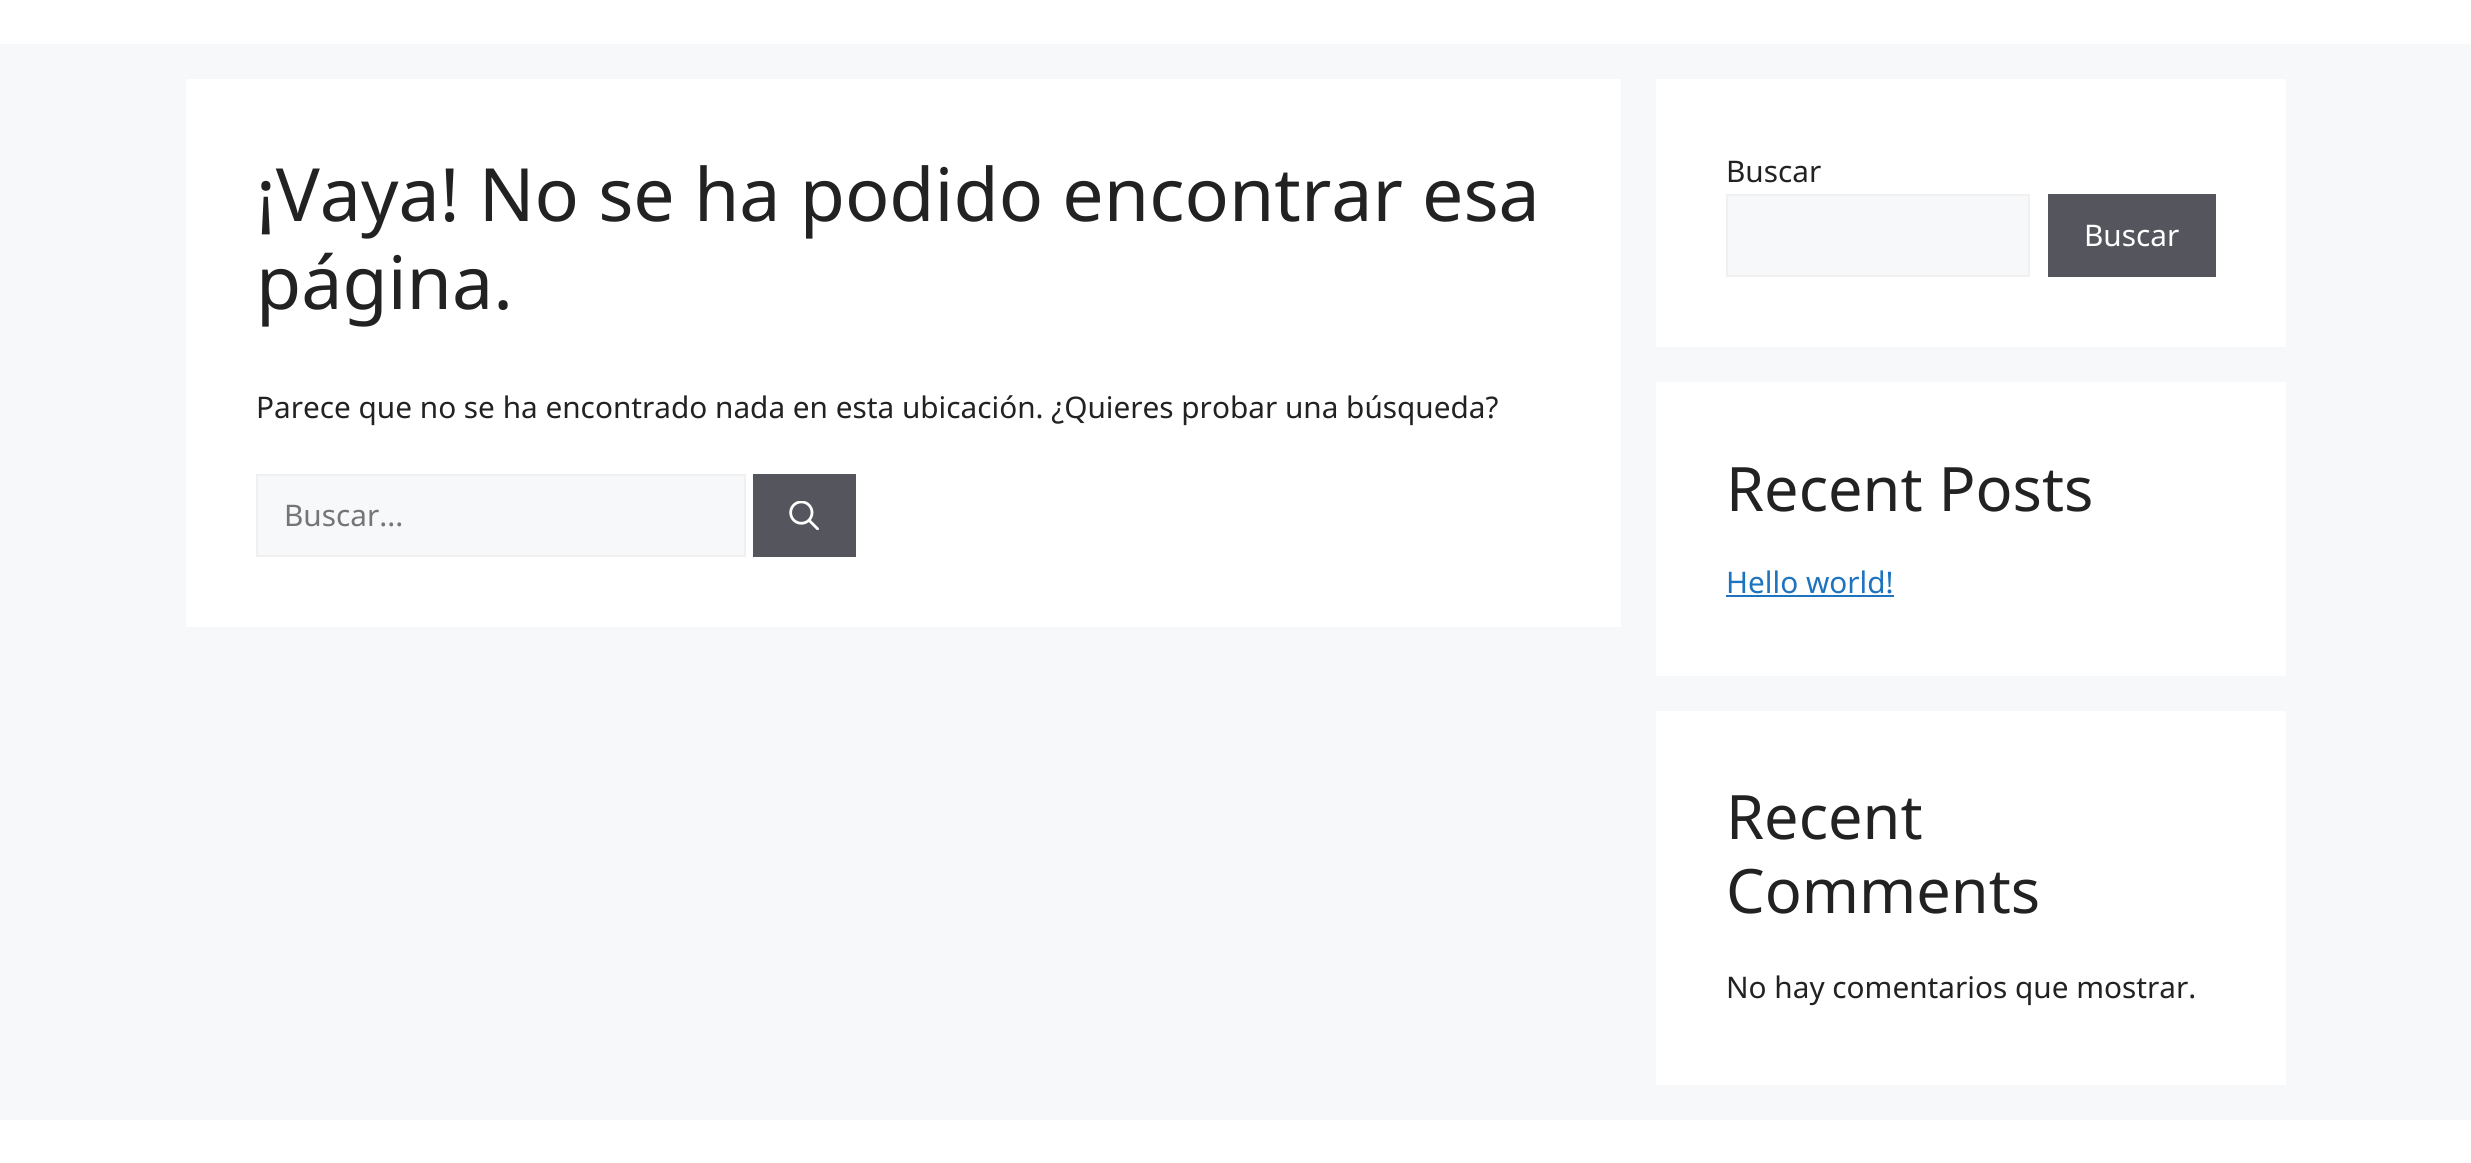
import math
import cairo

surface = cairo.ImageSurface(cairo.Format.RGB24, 2471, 1163)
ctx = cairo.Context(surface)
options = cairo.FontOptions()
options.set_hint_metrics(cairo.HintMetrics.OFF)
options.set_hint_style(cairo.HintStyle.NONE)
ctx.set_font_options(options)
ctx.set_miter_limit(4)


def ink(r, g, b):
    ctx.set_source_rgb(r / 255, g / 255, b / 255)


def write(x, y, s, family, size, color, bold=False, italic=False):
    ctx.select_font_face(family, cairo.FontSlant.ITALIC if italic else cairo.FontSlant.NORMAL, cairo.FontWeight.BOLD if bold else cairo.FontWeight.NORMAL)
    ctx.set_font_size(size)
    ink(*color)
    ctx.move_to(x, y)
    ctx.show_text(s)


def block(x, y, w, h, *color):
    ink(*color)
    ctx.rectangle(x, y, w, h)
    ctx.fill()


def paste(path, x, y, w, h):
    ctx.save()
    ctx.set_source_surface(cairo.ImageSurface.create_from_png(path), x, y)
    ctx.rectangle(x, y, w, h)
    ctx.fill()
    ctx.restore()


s1 = dict(family="Noto Sans", size=73.5, color=(34, 34, 34))
s2 = dict(family="Noto Sans", size=29.75, color=(34, 34, 34))
s3 = dict(family="Noto Sans", size=29.75, color=(117, 117, 117))
s4 = dict(family="Noto Sans", size=29.75, color=(255, 255, 255))
s5 = dict(family="Noto Sans", size=61.25, color=(34, 34, 34))
s6 = dict(family="Noto Sans", size=29.75, color=(30, 115, 190))

ink(247, 248, 249)
ctx.paint()
block(0, 0, 2471, 44, 255, 255, 255)
block(186, 79, 1435, 548, 255, 255, 255)
write(256, 221, "¡Vaya! No se ha podido encontrar esa", **s1)
write(256, 309, "página.", **s1)
write(256, 418, "Parece que no se ha encontrado nada en esta ubicación. ¿Quieres probar una búsqueda?", **s2)
ink(247, 248, 249)
ctx.rectangle(257, 475, 488, 81)
ctx.fill_preserve()
ink(240, 240, 240)
ctx.stroke()
write(284, 526, "Buscar...", **s3)
block(753, 474, 103, 83, 85, 85, 94)
paste("pic1.png", 789, 501, 30, 29)
block(1656, 79, 630, 268, 255, 255, 255)
write(1726, 182, "Buscar", **s2)
ink(247, 248, 249)
ctx.rectangle(1727, 195, 302, 81)
ctx.fill_preserve()
ink(240, 240, 240)
ctx.stroke()
block(2048, 194, 168, 83, 85, 85, 94)
write(2084, 246, "Buscar", **s4)
block(1656, 382, 630, 294, 255, 255, 255)
write(1726, 511, "Recent Posts", **s5)
write(1726, 593, "Hello world!", **s6)
block(1726, 595, 168, 2, 30, 115, 190)
block(1656, 711, 630, 374, 255, 255, 255)
write(1726, 839, "Recent", **s5)
write(1726, 913, "Comments", **s5)
write(1726, 998, "No hay comentarios que mostrar.", **s2)
block(0, 1120, 2471, 43, 255, 255, 255)
surface.write_to_png("screenshot.png")
